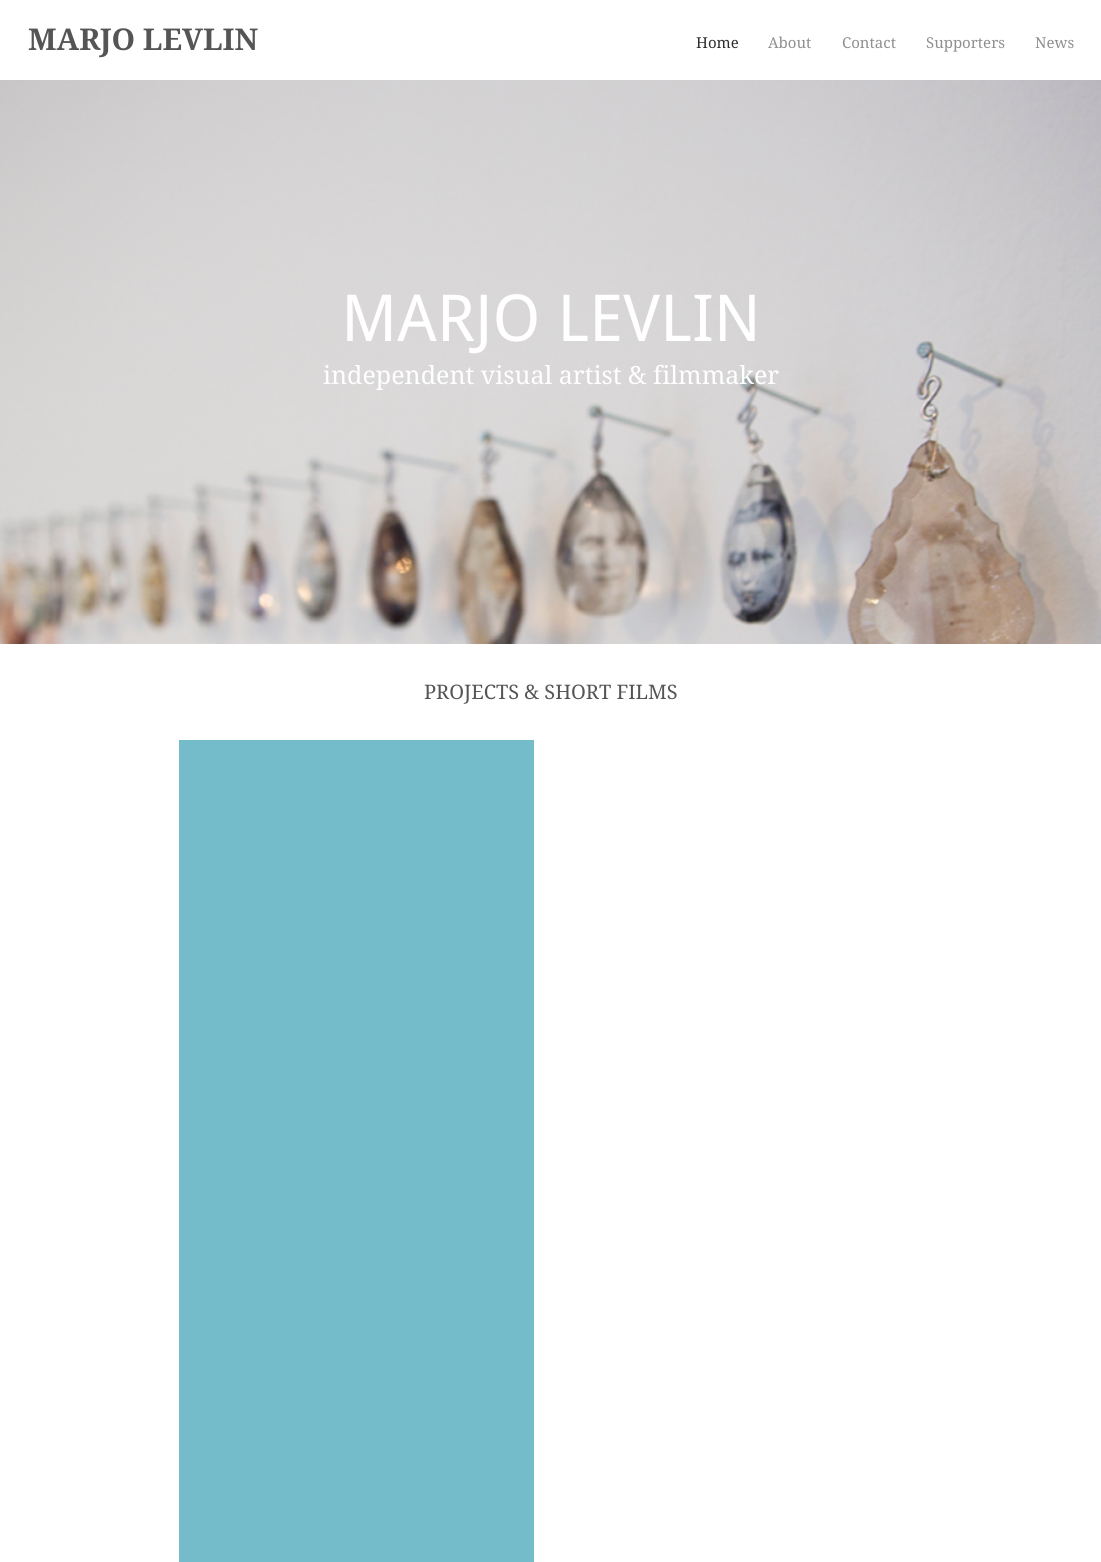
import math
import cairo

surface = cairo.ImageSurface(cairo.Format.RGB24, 1101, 1562)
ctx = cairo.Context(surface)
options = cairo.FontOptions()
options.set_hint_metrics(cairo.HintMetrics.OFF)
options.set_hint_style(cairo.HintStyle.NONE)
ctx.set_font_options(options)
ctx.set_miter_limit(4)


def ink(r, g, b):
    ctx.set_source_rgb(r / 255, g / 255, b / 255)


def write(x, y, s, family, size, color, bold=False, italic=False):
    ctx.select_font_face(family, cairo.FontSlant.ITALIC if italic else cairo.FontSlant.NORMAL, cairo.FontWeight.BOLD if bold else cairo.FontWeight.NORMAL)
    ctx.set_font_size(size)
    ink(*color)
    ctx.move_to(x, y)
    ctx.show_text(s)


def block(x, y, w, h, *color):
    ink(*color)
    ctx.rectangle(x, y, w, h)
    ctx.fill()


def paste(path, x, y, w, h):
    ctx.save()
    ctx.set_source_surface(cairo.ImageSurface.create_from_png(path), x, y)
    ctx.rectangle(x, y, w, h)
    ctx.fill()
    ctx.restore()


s1 = dict(family="Droid Serif", size=30, color=(85, 85, 85), bold=True)
s2 = dict(family="Droid Serif", size=15, color=(46, 46, 46))
s3 = dict(family="Droid Serif", size=15, color=(143, 143, 143))
s4 = dict(family="Droid Sans", size=64.75, color=(255, 255, 255))
s5 = dict(family="Droid Serif", size=25, color=(255, 255, 255))
s6 = dict(family="Droid Serif", size=20, color=(85, 85, 85))

ink(255, 255, 255)
ctx.paint()
write(28, 50, "MARJO LEVLIN", **s1)
write(696, 48, "Home", **s2)
write(768, 48, "About", **s3)
write(842, 48, "Contact", **s3)
write(926, 48, "Supporters", **s3)
write(1035, 48, "News", **s3)
paste("pic1.png", 0, 80, 1101, 564)
write(341, 341, "MARJO LEVLIN", **s4)
write(323, 384, "independent visual artist & filmmaker", **s5)
write(424, 699, "PROJECTS & SHORT FILMS", **s6)
block(179, 740, 355, 822, 116, 188, 201)
surface.write_to_png("screenshot.png")
